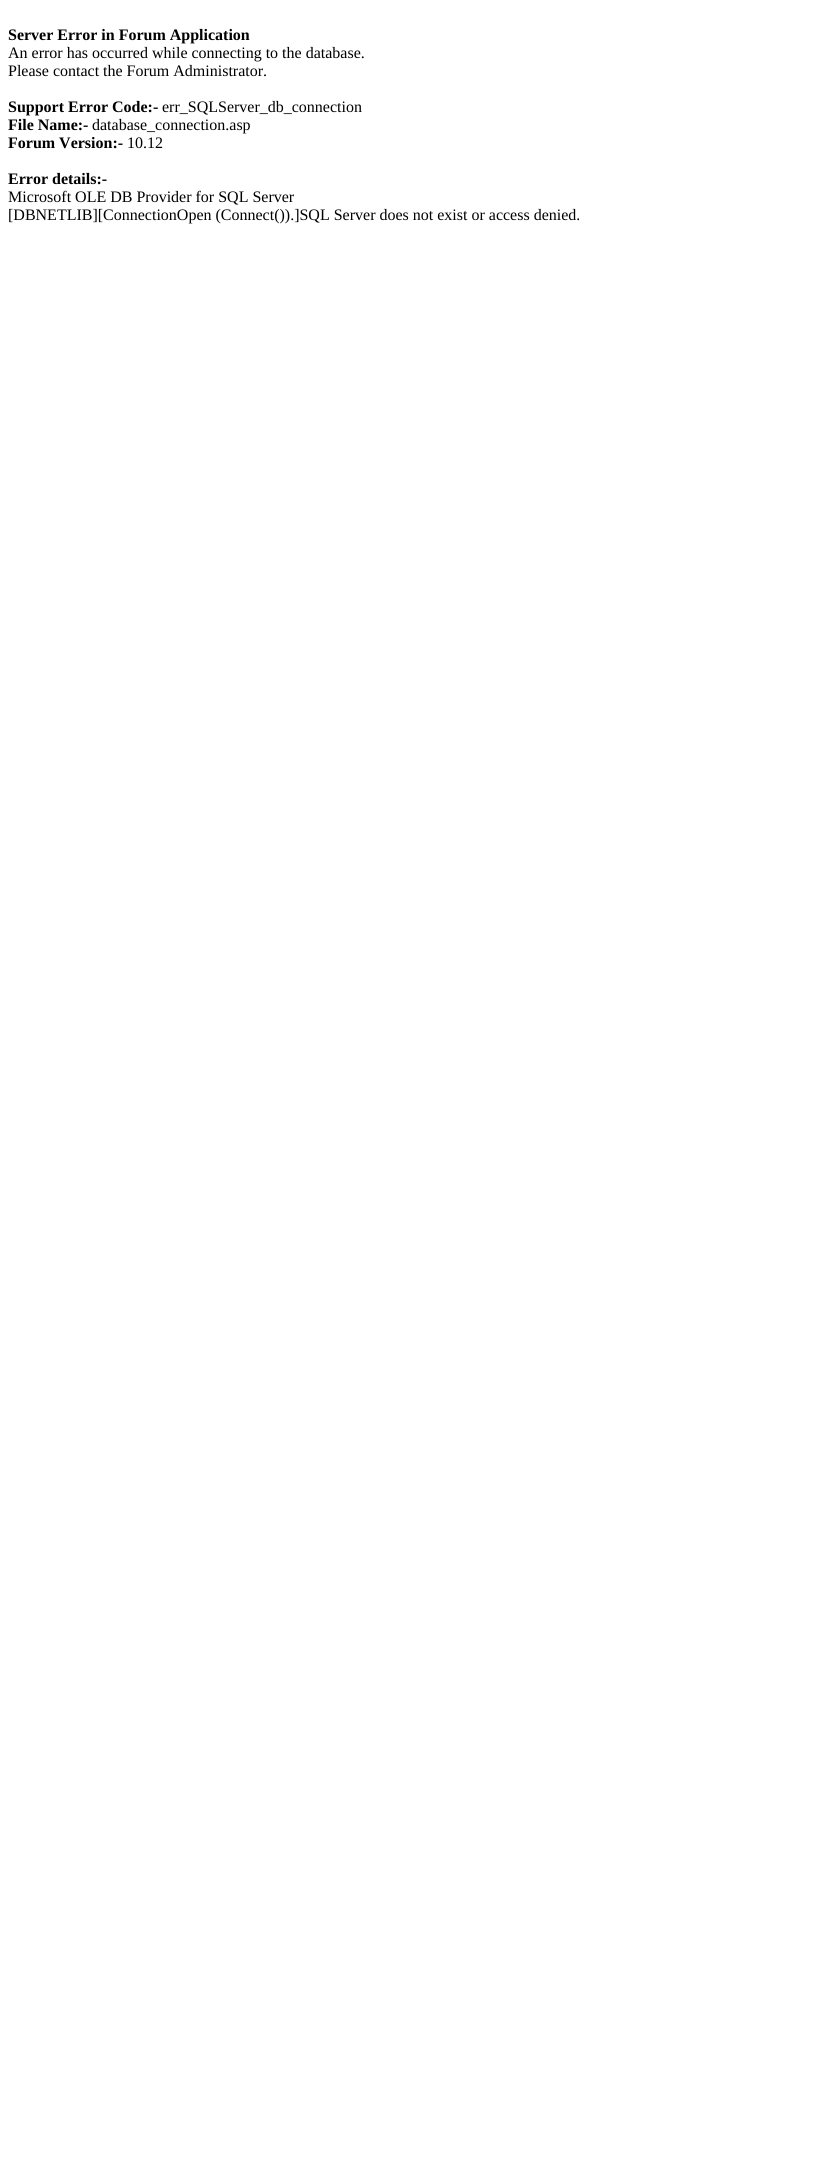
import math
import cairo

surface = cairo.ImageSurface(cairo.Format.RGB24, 820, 2182)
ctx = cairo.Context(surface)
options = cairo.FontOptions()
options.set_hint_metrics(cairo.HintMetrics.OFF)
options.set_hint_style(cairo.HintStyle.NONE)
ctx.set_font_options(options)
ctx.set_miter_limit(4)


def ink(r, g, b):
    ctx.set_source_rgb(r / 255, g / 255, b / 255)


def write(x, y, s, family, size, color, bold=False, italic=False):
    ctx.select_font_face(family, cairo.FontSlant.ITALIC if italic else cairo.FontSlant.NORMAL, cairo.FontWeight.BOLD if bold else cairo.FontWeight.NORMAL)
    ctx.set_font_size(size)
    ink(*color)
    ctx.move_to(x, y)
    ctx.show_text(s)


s1 = dict(family="Liberation Serif", size=16, color=(0, 0, 0), bold=True)
s2 = dict(family="Liberation Serif", size=16, color=(0, 0, 0))

ink(255, 255, 255)
ctx.paint()
write(8, 40, "Server Error in Forum Application", **s1)
write(8, 58, "An error has occurred while connecting to the database.", **s2)
write(8, 76, "Please contact the Forum Administrator.", **s2)
write(8, 112, "Support Error Code:-", **s1)
write(162, 112, "err_SQLServer_db_connection", **s2)
write(8, 130, "File Name:-", **s1)
write(92, 130, "database_connection.asp", **s2)
write(8, 148, "Forum Version:-", **s1)
write(127, 148, "10.12", **s2)
write(8, 184, "Error details:-", **s1)
write(8, 202, "Microsoft OLE DB Provider for SQL Server", **s2)
write(8, 220, "[DBNETLIB][ConnectionOpen (Connect()).]SQL Server does not exist or access denied.", **s2)
surface.write_to_png("screenshot.png")
